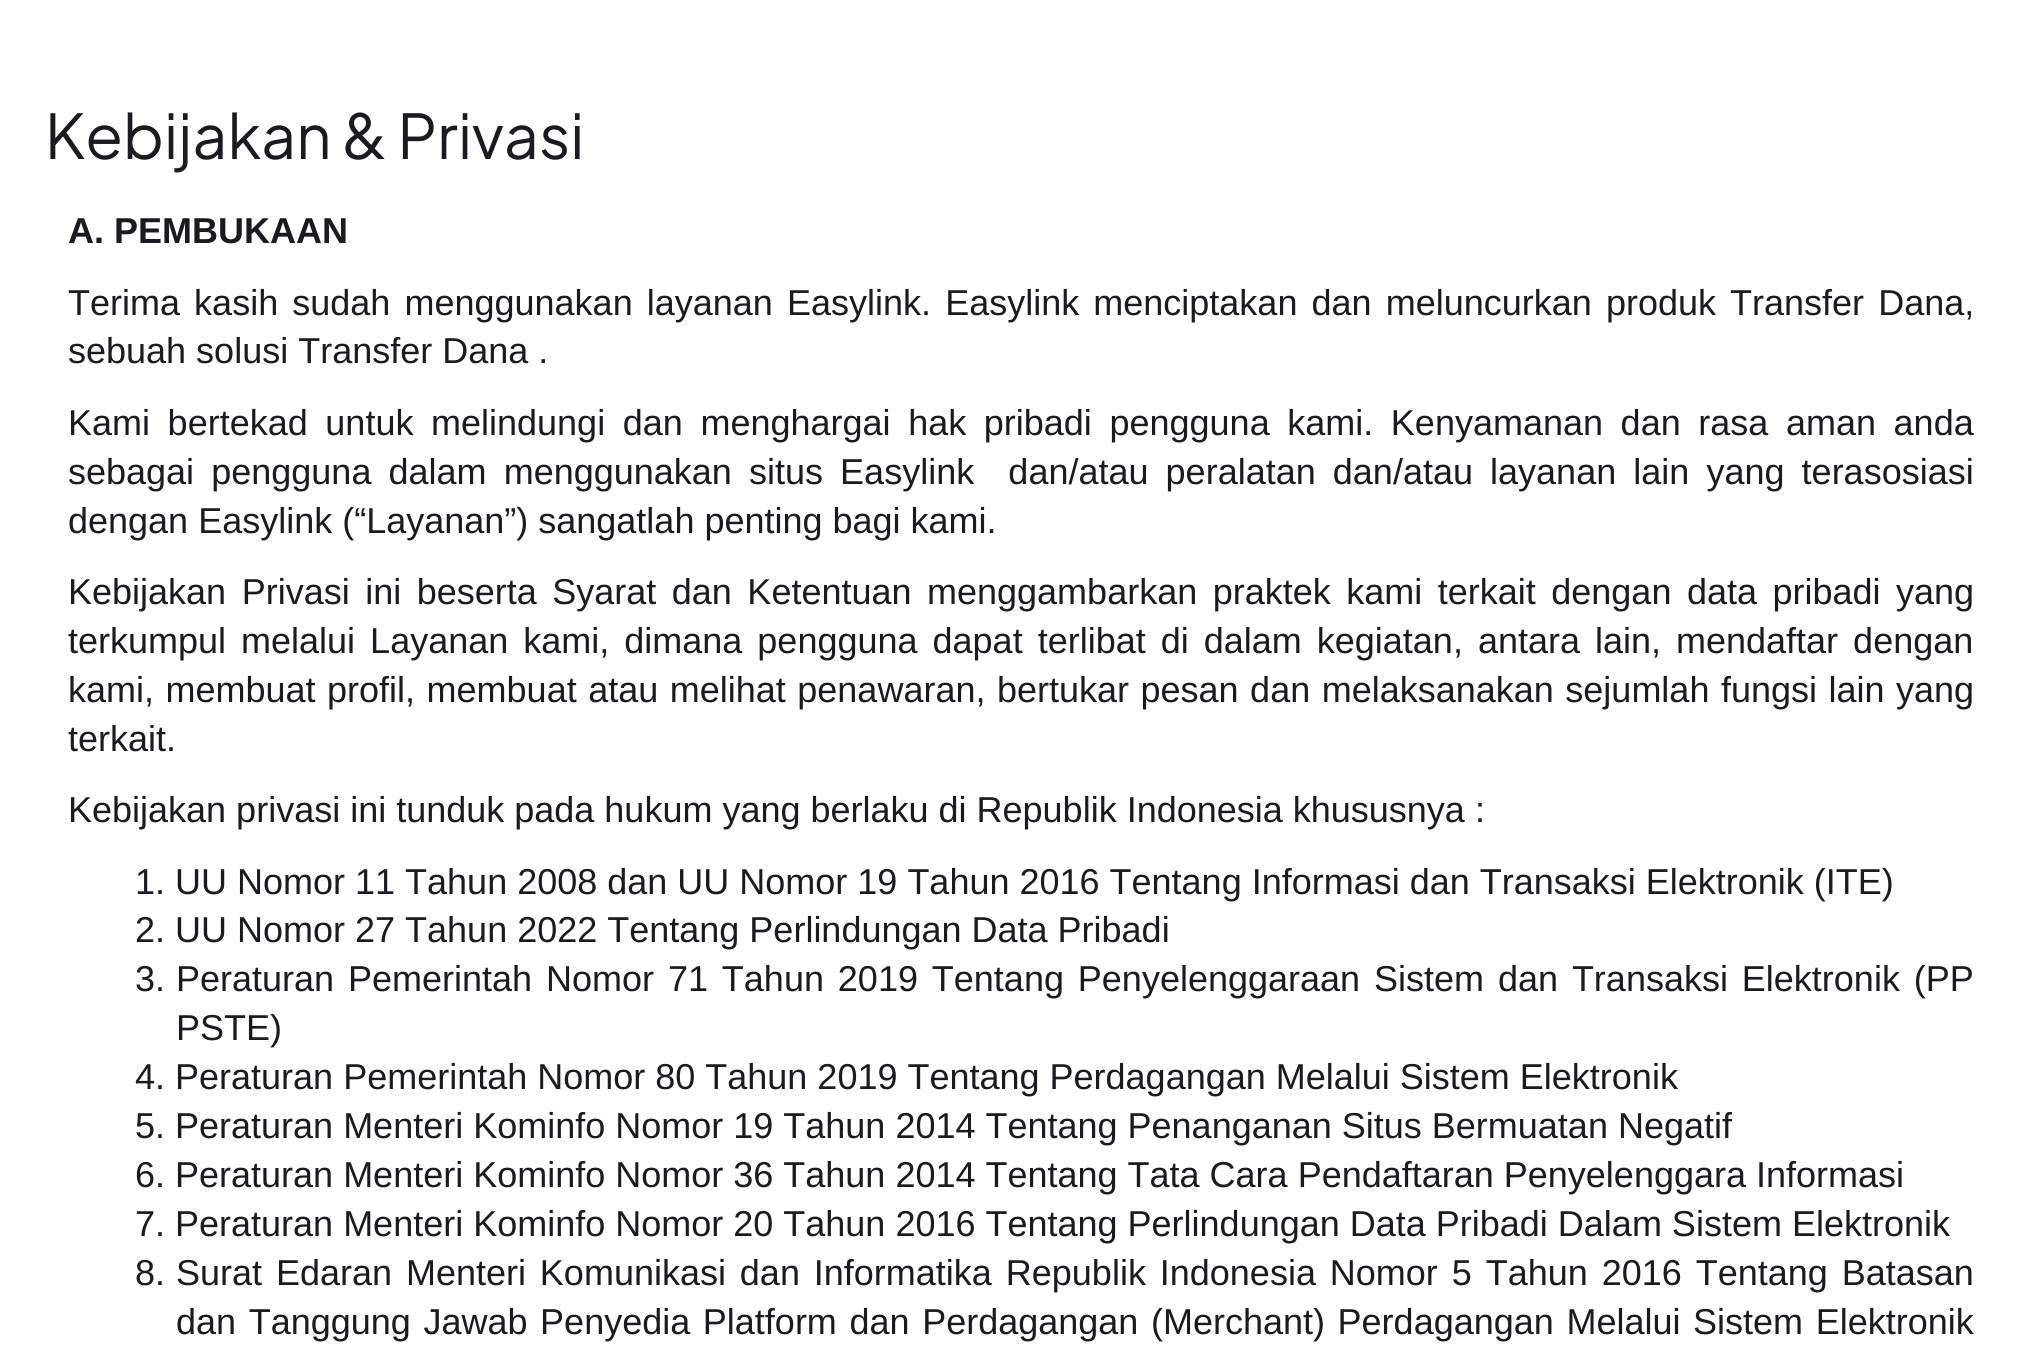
import math
import cairo

surface = cairo.ImageSurface(cairo.Format.RGB24, 2039, 1357)
ctx = cairo.Context(surface)
options = cairo.FontOptions()
options.set_hint_metrics(cairo.HintMetrics.OFF)
options.set_hint_style(cairo.HintStyle.NONE)
ctx.set_font_options(options)
ctx.set_miter_limit(4)


def ink(r, g, b):
    ctx.set_source_rgb(r / 255, g / 255, b / 255)


def write(x, y, s, family, size, color, bold=False, italic=False):
    ctx.select_font_face(family, cairo.FontSlant.ITALIC if italic else cairo.FontSlant.NORMAL, cairo.FontWeight.BOLD if bold else cairo.FontWeight.NORMAL)
    ctx.set_font_size(size)
    ink(*color)
    ctx.move_to(x, y)
    ctx.show_text(s)


def write_spaced(x, y, s, letter, word):
    ctx.move_to(x, y)
    for ch in s:
        ctx.show_text(ch)
        ctx.rel_move_to(letter + word * (ch == ' '), 0)


s1 = dict(family="Plus Jakarta Sans", size=61.5, color=(26, 27, 32))
s2 = dict(family="Liberation Sans", size=36, color=(26, 27, 32), bold=True)
s3 = dict(family="Liberation Sans", size=36, color=(26, 27, 32))

ink(255, 255, 255)
ctx.paint()
write(45, 159, "Kebijakan & Privasi", **s1)
write(68, 243, "A. PEMBUKAAN", **s2)
ctx.select_font_face("Liberation Sans")
write_spaced(68, 315, "Terima kasih sudah menggunakan layanan Easylink. Easylink menciptakan dan meluncurkan produk Transfer Dana,", 0, 4.1)
write(68, 363, "sebuah solusi Transfer Dana .", **s3)
write_spaced(68, 435, "Kami bertekad untuk melindungi dan menghargai hak pribadi pengguna kami. Kenyamanan dan rasa aman anda", 0, 7.6)
write_spaced(68, 484, "sebagai pengguna dalam menggunakan situs Easylink  dan/atau peralatan dan/atau layanan lain yang terasosiasi", 0, 7.1)
write(68, 533, "dengan Easylink (“Layanan”) sangatlah penting bagi kami.", **s3)
write_spaced(68, 604, "Kebijakan Privasi ini beserta Syarat dan Ketentuan menggambarkan praktek kami terkait dengan data pribadi yang", 0, 5.5)
write_spaced(68, 653, "terkumpul melalui Layanan kami, dimana pengguna dapat terlibat di dalam kegiatan, antara lain, mendaftar dengan", 0, 5)
write_spaced(68, 702, "kami, membuat profil, membuat atau melihat penawaran, bertukar pesan dan melaksanakan sejumlah fungsi lain yang", 0, 1.5)
write(68, 751, "terkait.", **s3)
write(68, 822, "Kebijakan privasi ini tunduk pada hukum yang berlaku di Republik Indonesia khususnya :", **s3)
write(135, 894, "1. UU Nomor 11 Tahun 2008 dan UU Nomor 19 Tahun 2016 Tentang Informasi dan Transaksi Elektronik (ITE)", **s3)
write(135, 942, "2. UU Nomor 27 Tahun 2022 Tentang Perlindungan Data Pribadi", **s3)
write(135, 991, "3.", **s3)
write_spaced(176, 991, "Peraturan Pemerintah Nomor 71 Tahun 2019 Tentang Penyelenggaraan Sistem dan Transaksi Elektronik (PP", 0, 3.9)
write(176, 1040, "PSTE)", **s3)
write(135, 1089, "4. Peraturan Pemerintah Nomor 80 Tahun 2019 Tentang Perdagangan Melalui Sistem Elektronik", **s3)
write(135, 1138, "5. Peraturan Menteri Kominfo Nomor 19 Tahun 2014 Tentang Penanganan Situs Bermuatan Negatif", **s3)
write(135, 1187, "6. Peraturan Menteri Kominfo Nomor 36 Tahun 2014 Tentang Tata Cara Pendaftaran Penyelenggara Informasi", **s3)
write(135, 1236, "7. Peraturan Menteri Kominfo Nomor 20 Tahun 2016 Tentang Perlindungan Data Pribadi Dalam Sistem Elektronik", **s3)
write(135, 1285, "8.", **s3)
write_spaced(176, 1285, "Surat Edaran Menteri Komunikasi dan Informatika Republik Indonesia Nomor 5 Tahun 2016 Tentang Batasan", 0, 3.9)
write_spaced(176, 1334, "dan Tanggung Jawab Penyedia Platform dan Perdagangan (Merchant) Perdagangan Melalui Sistem Elektronik", 0, 2.6)
surface.write_to_png("screenshot.png")
